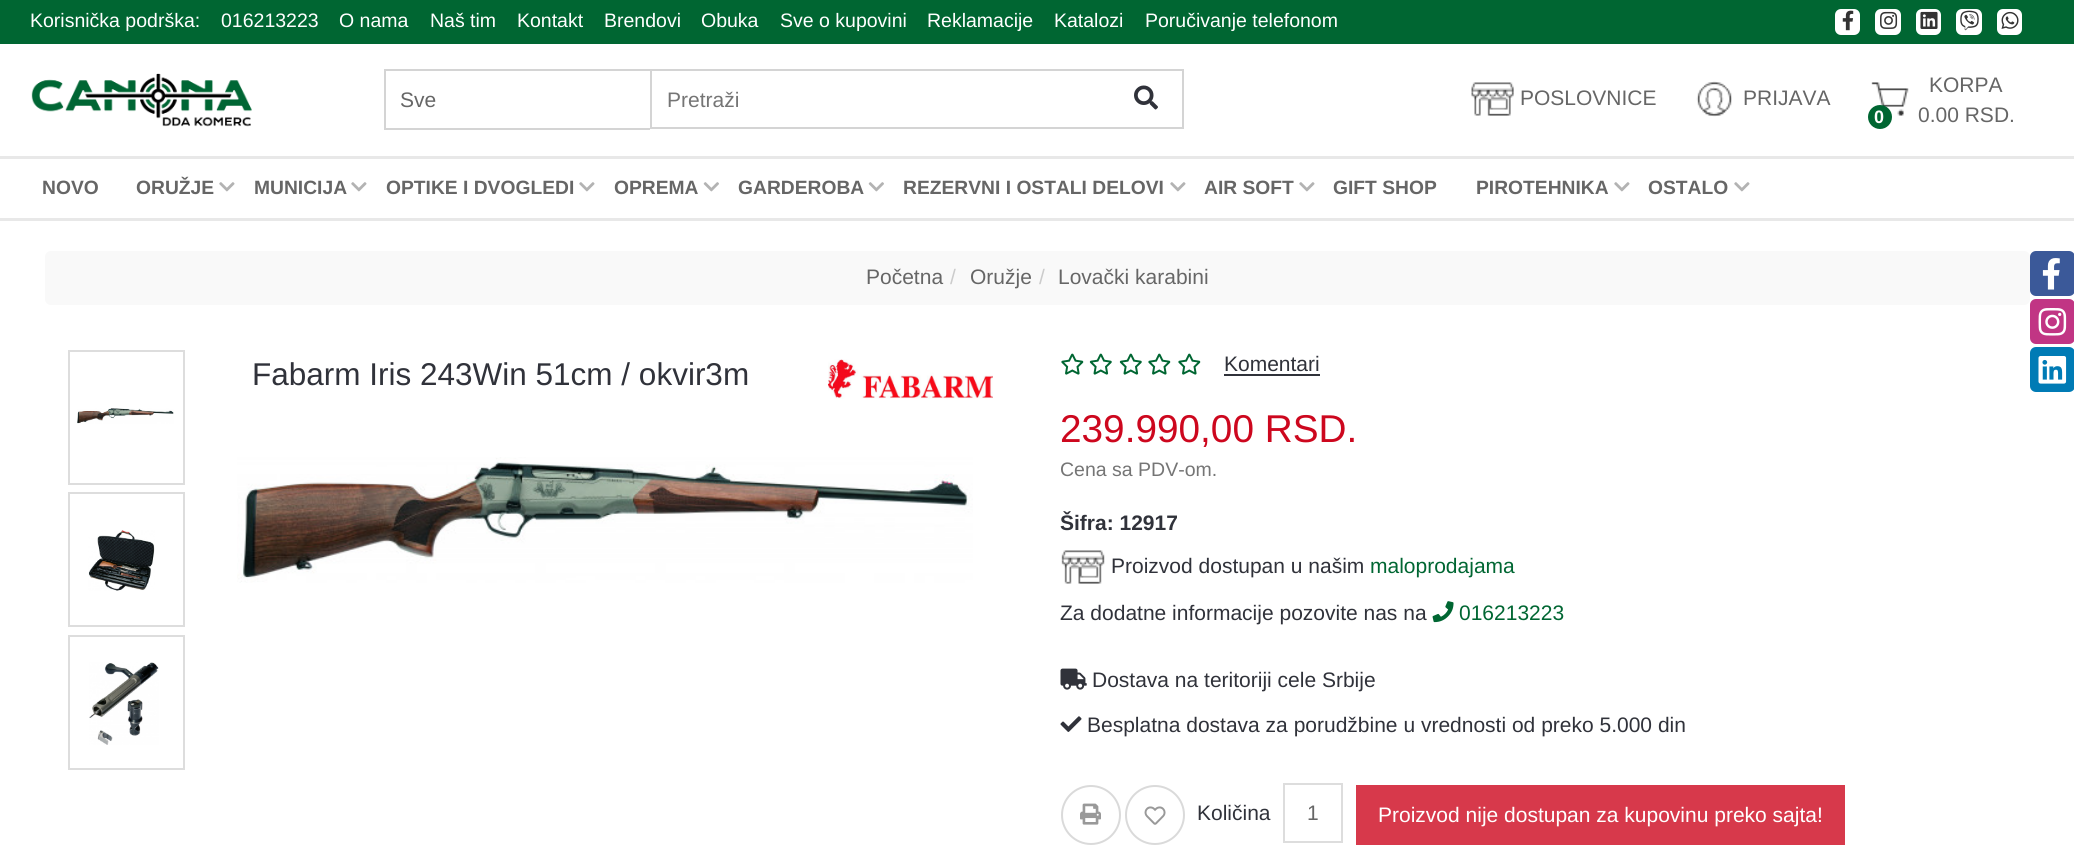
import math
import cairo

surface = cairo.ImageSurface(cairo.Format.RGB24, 2074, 854)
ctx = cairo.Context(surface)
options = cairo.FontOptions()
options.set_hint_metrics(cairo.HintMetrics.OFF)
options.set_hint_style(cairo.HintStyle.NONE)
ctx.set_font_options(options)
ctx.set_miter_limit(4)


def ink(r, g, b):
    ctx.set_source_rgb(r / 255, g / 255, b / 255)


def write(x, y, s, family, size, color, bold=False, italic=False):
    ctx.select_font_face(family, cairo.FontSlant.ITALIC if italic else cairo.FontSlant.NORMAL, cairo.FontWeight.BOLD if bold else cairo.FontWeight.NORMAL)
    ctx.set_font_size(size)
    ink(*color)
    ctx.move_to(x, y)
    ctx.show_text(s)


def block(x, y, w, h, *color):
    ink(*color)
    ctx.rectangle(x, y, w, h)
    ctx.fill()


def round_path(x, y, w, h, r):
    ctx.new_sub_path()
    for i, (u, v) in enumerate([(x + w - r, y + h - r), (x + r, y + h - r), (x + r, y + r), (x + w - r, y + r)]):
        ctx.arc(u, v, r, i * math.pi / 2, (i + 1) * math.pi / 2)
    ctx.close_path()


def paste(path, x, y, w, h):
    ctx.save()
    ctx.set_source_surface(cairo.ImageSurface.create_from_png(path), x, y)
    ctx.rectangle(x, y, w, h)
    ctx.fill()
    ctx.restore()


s1 = dict(family="Liberation Sans", size=19.5, color=(255, 255, 255))
s2 = dict(family="Liberation Sans", size=21, color=(102, 102, 102))
s3 = dict(family="Liberation Sans", size=21, color=(117, 117, 117))
s4 = dict(family="Liberation Sans", size=18, color=(255, 255, 255), bold=True)
s5 = dict(family="Liberation Sans", size=19.25, color=(102, 102, 102), bold=True)
s6 = dict(family="Liberation Sans", size=21, color=(204, 204, 204))
s7 = dict(family="Liberation Sans", size=31.5, color=(48, 50, 58))
s8 = dict(family="Liberation Sans", size=21, color=(48, 50, 58))
s9 = dict(family="Liberation Sans", size=38.75, color=(205, 7, 30))
s10 = dict(family="Liberation Sans", size=19.5, color=(117, 117, 117))
s11 = dict(family="Liberation Sans", size=21, color=(48, 50, 58), bold=True)
s12 = dict(family="Liberation Sans", size=21, color=(0, 102, 50))
s13 = dict(family="Liberation Sans", size=21, color=(255, 255, 255))

ink(255, 255, 255)
ctx.paint()
block(0, 0, 2074, 44, 0, 102, 50)
write(30, 27, "Korisnička podrška:", **s1)
write(221, 27, "016213223", **s1)
write(339, 27, "O nama", **s1)
write(430, 27, "Naš tim", **s1)
write(517, 27, "Kontakt", **s1)
write(604, 27, "Brendovi", **s1)
write(701, 27, "Obuka", **s1)
write(780, 27, "Sve o kupovini", **s1)
write(927, 27, "Reklamacije", **s1)
write(1054, 27, "Katalozi", **s1)
write(1145, 27, "Poručivanje telefonom", **s1)
round_path(1835, 9, 25, 26, 6)
ctx.fill()
paste("pic1.png", 1842, 10, 12, 21)
round_path(1875, 9, 26, 26, 6)
ctx.fill()
paste("pic2.png", 1880, 11, 18, 18)
round_path(1916, 9, 25, 26, 6)
ctx.fill()
paste("pic3.png", 1920, 11, 18, 18)
round_path(1956, 9, 26, 26, 6)
ctx.fill()
paste("pic4.png", 1960, 10, 19, 21)
round_path(1997, 9, 25, 26, 6)
ctx.fill()
paste("pic5.png", 2001, 11, 18, 18)
ink(59, 89, 153)
round_path(2030, 251, 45, 45, 6)
ctx.fill()
paste("pic6.png", 2042, 258, 18, 32)
ink(193, 53, 132)
round_path(2030, 299, 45, 45, 6)
ctx.fill()
paste("pic7.png", 2038, 308, 29, 28)
ink(0, 123, 181)
round_path(2030, 347, 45, 45, 6)
ctx.fill()
paste("pic8.png", 2038, 356, 29, 28)
paste("pic9.png", 31, 73, 221, 54)
block(384, 69, 266, 2, 212, 212, 212)
block(384, 128, 266, 2, 212, 212, 212)
block(384, 69, 2, 60, 212, 212, 212)
write(400, 107, "Sve", **s2)
ctx.rectangle(651, 70, 532, 58)
ink(212, 212, 212)
ctx.stroke()
write(667, 107, "Pretraži", **s3)
paste("pic10.png", 1134, 85, 24, 25)
paste("pic11.png", 1471, 82, 43, 34)
write(1520, 105, "POSLOVNICE", **s2)
paste("pic12.png", 1696, 81, 36, 36)
write(1743, 105, "PRIJAVA", **s2)
paste("pic13.png", 1871, 82, 38, 34)
write(1929, 92, "KORPA", **s2)
write(1918, 122, "0.00 RSD.", **s2)
ink(0, 102, 50)
ctx.new_path()
ctx.arc(1880, 117, 12, 0, 2 * math.pi)
ctx.fill()
write(1874, 123, "0", **s4)
block(0, 156, 2074, 3, 232, 232, 232)
block(0, 218, 2074, 3, 232, 232, 232)
write(42, 194, "NOVO", **s5)
write(136, 194, "ORUŽJE", **s5)
paste("pic14.png", 219, 182, 16, 10)
write(254, 194, "MUNICIJA", **s5)
paste("pic14.png", 351, 182, 16, 10)
write(386, 194, "OPTIKE I DVOGLEDI", **s5)
paste("pic14.png", 579, 182, 16, 10)
write(614, 194, "OPREMA", **s5)
paste("pic15.png", 703, 182, 16, 10)
write(738, 194, "GARDEROBA", **s5)
paste("pic15.png", 868, 182, 16, 10)
write(903, 194, "REZERVNI I OSTALI DELOVI", **s5)
paste("pic14.png", 1170, 182, 16, 10)
write(1204, 194, "AIR SOFT", **s5)
paste("pic14.png", 1299, 182, 16, 10)
write(1333, 194, "GIFT SHOP", **s5)
write(1476, 194, "PIROTEHNIKA", **s5)
paste("pic14.png", 1614, 182, 16, 10)
write(1648, 194, "OSTALO", **s5)
paste("pic14.png", 1734, 182, 16, 10)
ink(249, 249, 249)
round_path(45, 251, 1985, 54, 6)
ctx.fill()
write(866, 284, "Početna", **s2)
write(950, 284, "/", **s6)
write(970, 284, "Oružje", **s2)
write(1039, 284, "/", **s6)
write(1058, 284, "Lovački karabini", **s2)
ctx.rectangle(69, 351, 115, 133)
ink(221, 221, 221)
ctx.stroke()
paste("pic16.png", 77, 408, 97, 16)
ctx.rectangle(69, 493, 115, 133)
ctx.stroke()
paste("pic17.png", 88, 530, 67, 61)
ctx.rectangle(69, 636, 115, 133)
ctx.stroke()
paste("pic18.png", 89, 662, 70, 83)
write(252, 385, "Fabarm Iris 243Win 51cm / okvir3m", **s7)
paste("pic19.png", 828, 359, 165, 40)
paste("pic20.png", 237, 457, 736, 126)
paste("pic21.png", 1061, 353, 23, 22)
paste("pic22.png", 1089, 353, 23, 22)
paste("pic22.png", 1119, 353, 23, 22)
paste("pic21.png", 1148, 353, 23, 22)
paste("pic21.png", 1178, 353, 23, 22)
write(1224, 371, "Komentari", **s8)
block(1224, 374, 96, 2, 48, 50, 58)
write(1060, 442, "239.990,00 RSD.", **s9)
write(1060, 476, "Cena sa PDV-om.", **s10)
write(1060, 530, "Šifra: 12917", **s11)
paste("pic23.png", 1061, 550, 44, 34)
write(1111, 573, "Proizvod dostupan u našim", **s8)
write(1370, 573, "maloprodajama", **s12)
write(1060, 620, "Za dodatne informacije pozovite nas na", **s8)
paste("pic24.png", 1432, 601, 22, 22)
write(1459, 620, "016213223", **s12)
paste("pic25.png", 1060, 668, 27, 22)
write(1092, 687, "Dostava na teritoriji cele Srbije", **s8)
paste("pic26.png", 1060, 716, 22, 16)
write(1087, 732, "Besplatna dostava za porudžbine u vrednosti od preko 5.000 din", **s8)
ctx.new_path()
ctx.arc(1091, 815, 29, 0, 2 * math.pi)
ink(218, 218, 218)
ctx.stroke()
paste("pic27.png", 1080, 803, 21, 22)
ctx.arc(1155, 815, 29, 0, 2 * math.pi)
ctx.stroke()
paste("pic28.png", 1144, 806, 22, 19)
write(1197, 820, "Količina", **s8)
ctx.rectangle(1284, 784, 58, 58)
ink(221, 221, 221)
ctx.stroke()
write(1307, 820, "1", **s2)
block(1356, 785, 489, 60, 215, 57, 75)
write(1378, 822, "Proizvod nije dostupan za kupovinu preko sajta!", **s13)
surface.write_to_png("screenshot.png")
